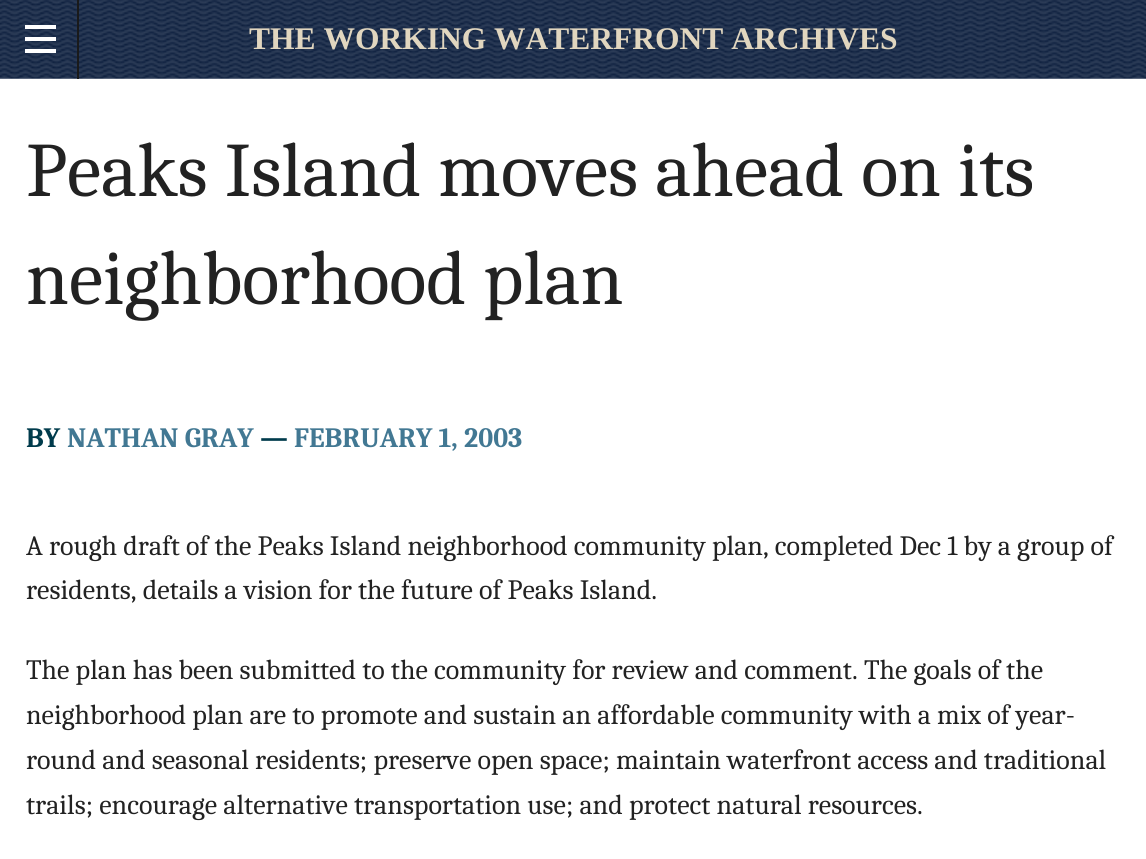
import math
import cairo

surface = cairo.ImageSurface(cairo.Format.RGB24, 1146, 859)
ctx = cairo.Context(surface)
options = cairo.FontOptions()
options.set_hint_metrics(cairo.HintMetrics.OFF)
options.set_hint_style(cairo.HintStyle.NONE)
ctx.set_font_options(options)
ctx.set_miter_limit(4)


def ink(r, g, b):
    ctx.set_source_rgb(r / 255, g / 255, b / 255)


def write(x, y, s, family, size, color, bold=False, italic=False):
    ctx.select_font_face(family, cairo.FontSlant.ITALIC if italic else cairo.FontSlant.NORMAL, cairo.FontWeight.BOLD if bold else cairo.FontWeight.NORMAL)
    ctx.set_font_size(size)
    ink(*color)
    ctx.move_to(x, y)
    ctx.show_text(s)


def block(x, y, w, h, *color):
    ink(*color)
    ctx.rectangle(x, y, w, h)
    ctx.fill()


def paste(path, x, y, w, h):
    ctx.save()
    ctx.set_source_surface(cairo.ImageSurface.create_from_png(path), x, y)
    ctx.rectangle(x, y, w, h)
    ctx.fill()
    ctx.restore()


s1 = dict(family="Liberation Serif", size=31.5, color=(225, 214, 191), bold=True)
s2 = dict(family="Caladea", size=77, color=(34, 34, 34))
s3 = dict(family="Caladea", size=28, color=(0, 59, 76), bold=True)
s4 = dict(family="Caladea", size=28, color=(66, 120, 147), bold=True)
s5 = dict(family="Caladea", size=28, color=(34, 34, 34))

ink(255, 255, 255)
ctx.paint()
paste("pic1.png", 0, 0, 1146, 79)
block(77, 0, 2, 79, 26, 26, 26)
block(25, 49, 31, 4, 255, 255, 255)
block(25, 37, 31, 4, 255, 255, 255)
block(25, 25, 31, 4, 255, 255, 255)
write(249, 49, "THE WORKING WATERFRONT ARCHIVES", **s1)
write(26, 196, "Peaks Island moves ahead on its", **s2)
write(26, 304, "neighborhood plan", **s2)
write(26, 447, "BY", **s3)
write(67, 447, "NATHAN GRAY", **s4)
write(260, 447, "—", **s3)
write(294, 447, "FEBRUARY 1, 2003", **s4)
write(26, 555, "A rough draft of the Peaks Island neighborhood community plan, completed Dec 1 by a group of", **s5)
write(26, 599, "residents, details a vision for the future of Peaks Island.", **s5)
write(26, 679, "The plan has been submitted to the community for review and comment. The goals of the", **s5)
write(26, 724, "neighborhood plan are to promote and sustain an affordable community with a mix of year-", **s5)
write(26, 769, "round and seasonal residents; preserve open space; maintain waterfront access and traditional", **s5)
write(26, 814, "trails; encourage alternative transportation use; and protect natural resources.", **s5)
surface.write_to_png("screenshot.png")
